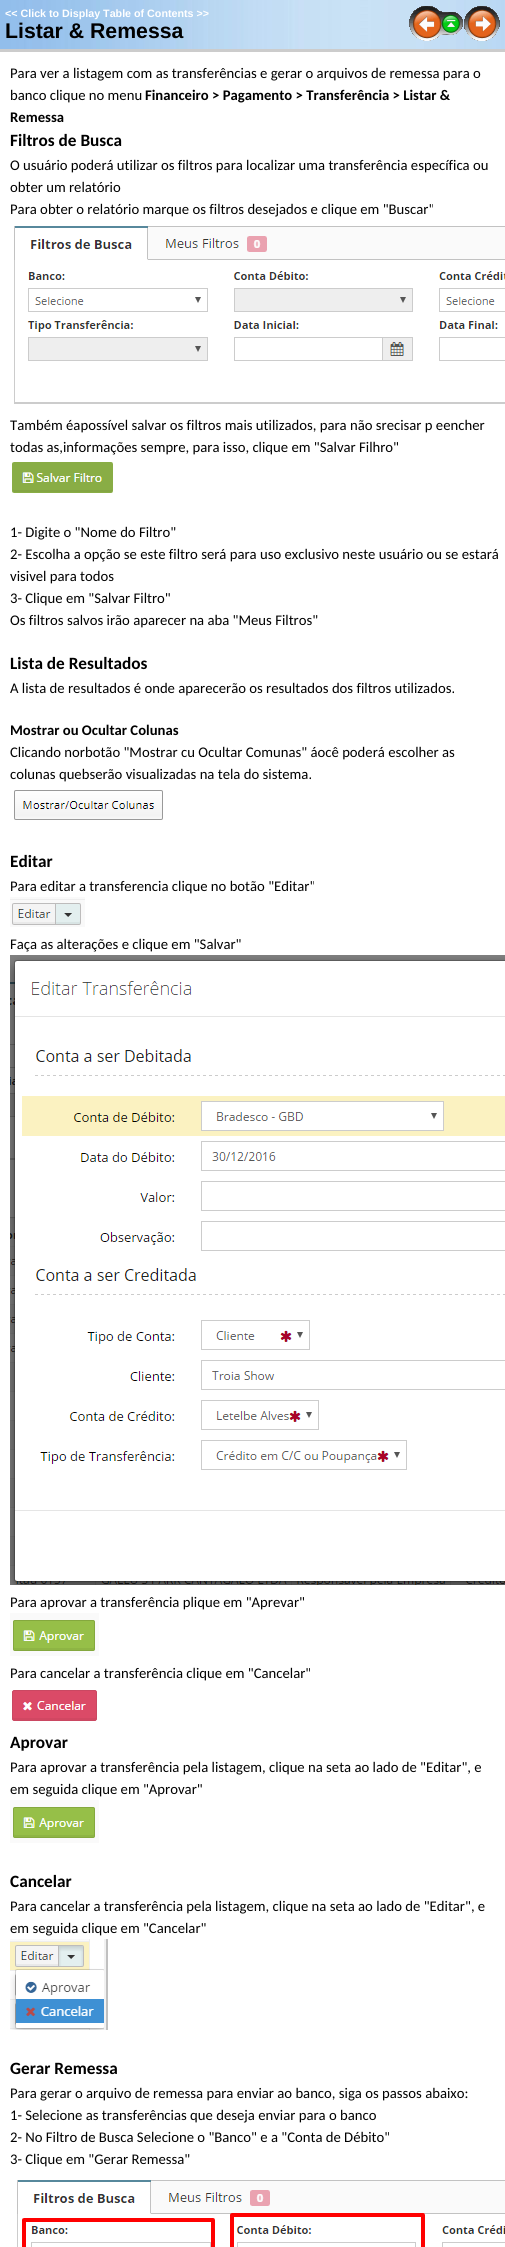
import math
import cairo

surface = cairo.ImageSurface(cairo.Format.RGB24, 505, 2247)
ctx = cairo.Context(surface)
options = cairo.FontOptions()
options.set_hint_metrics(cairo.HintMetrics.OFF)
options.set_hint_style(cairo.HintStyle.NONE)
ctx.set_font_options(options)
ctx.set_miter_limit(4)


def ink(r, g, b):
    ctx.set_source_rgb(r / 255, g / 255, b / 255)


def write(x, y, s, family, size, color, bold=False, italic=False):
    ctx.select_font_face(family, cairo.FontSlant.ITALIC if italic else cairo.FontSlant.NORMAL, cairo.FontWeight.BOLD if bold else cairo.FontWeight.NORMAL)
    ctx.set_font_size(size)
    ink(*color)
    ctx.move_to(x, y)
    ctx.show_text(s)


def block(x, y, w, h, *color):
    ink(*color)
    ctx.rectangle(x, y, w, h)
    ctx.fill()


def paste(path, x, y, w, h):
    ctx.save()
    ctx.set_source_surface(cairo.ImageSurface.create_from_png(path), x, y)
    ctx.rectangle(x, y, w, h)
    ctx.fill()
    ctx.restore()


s1 = dict(family="Liberation Sans", size=10.7, color=(255, 255, 255), bold=True)
s2 = dict(family="Liberation Sans", size=21.25, color=(0, 0, 0), bold=True)
s3 = dict(family="Carlito", size=14.7, color=(0, 0, 0))
s4 = dict(family="Carlito", size=14.7, color=(0, 0, 0), bold=True)
s5 = dict(family="Carlito", size=17.25, color=(0, 0, 0), bold=True)

ink(255, 255, 255)
ctx.paint()
paste("pic1.png", 0, 0, 505, 49)
write(5, 17, "<< Click to Display Table of Contents >>", **s1)
write(5, 38, "Listar & Remessa", **s2)
paste("pic2.png", 409, 6, 33, 35)
paste("pic3.png", 442, 12, 21, 23)
paste("pic4.png", 464, 6, 36, 35)
block(0, 49, 505, 3, 204, 204, 204)
write(10, 78, "Para ver a listagem com as transferências e gerar o arquivos de remessa para o", **s3)
write(10, 100, "banco clique no menu", **s3)
write(145, 100, "Financeiro > Pagamento > Transferência > Listar &", **s4)
write(10, 122, "Remessa", **s4)
write(10, 146, "Filtros de Busca", **s5)
write(10, 170, "O usuário poderá utilizar os filtros para localizar uma transferência específica ou", **s3)
write(10, 192, "obter um relatório", **s3)
write(10, 214, "Para obter o relatório marque os filtros desejados e clique em \"Buscar\"", **s3)
paste("pic5.png", 14, 226, 491, 178)
write(10, 430, "Também éapossível salvar os filtros mais utilizados, para não srecisar p eencher", **s3)
write(10, 452, "todas as,informações sempre, para isso, clique em \"Salvar Filhro\"", **s3)
paste("pic6.png", 12, 462, 101, 31)
write(10, 537, "1- Digite o \"Nome do Filtro\"", **s3)
write(10, 559, "2- Escolha a opção se este filtro será para uso exclusivo neste usuário ou se estará", **s3)
write(10, 581, "visivel para todos", **s3)
write(10, 603, "3- Clique em \"Salvar Filtro\"", **s3)
write(10, 625, "Os filtros salvos irão aparecer na aba \"Meus Filtros\"", **s3)
write(10, 669, "Lista de Resultados", **s5)
write(10, 693, "A lista de resultados é onde aparecerão os resultados dos filtros utilizados.", **s3)
write(10, 735, "Mostrar ou Ocultar Colunas", **s4)
write(10, 757, "Clicando norbotão \"Mostrar cu Ocultar Comunas\" áocê poderá escolher as", **s3)
write(10, 779, "colunas quebserão visualizadas na tela do sistema.", **s3)
paste("pic7.png", 14, 790, 149, 30)
write(10, 867, "Editar", **s5)
write(10, 891, "Para editar a transferencia clique no botão \"Editar\"", **s3)
paste("pic8.png", 10, 897, 75, 30)
write(10, 949, "Faça as alterações e clique em \"Salvar\"", **s3)
paste("pic9.png", 10, 955, 495, 630)
write(10, 1607, "Para aprovar a transferência plique em \"Aprevar\"", **s3)
paste("pic10.png", 10, 1613, 89, 43)
write(10, 1678, "Para cancelar a transferência clique em \"Cancelar\"", **s3)
paste("pic11.png", 12, 1690, 85, 31)
write(10, 1748, "Aprovar", **s5)
write(10, 1772, "Para aprovar a transferência pela listagem, clique na seta ao lado de \"Editar\", e", **s3)
write(10, 1794, "em seguida clique em \"Aprovar\"", **s3)
paste("pic10.png", 10, 1800, 89, 43)
write(10, 1887, "Cancelar", **s5)
write(10, 1911, "Para cancelar a transferência pela listagem, clique na seta ao lado de \"Editar\", e", **s3)
write(10, 1933, "em seguida clique em \"Cancelar\"", **s3)
paste("pic12.png", 10, 1939, 98, 91)
write(10, 2074, "Gerar Remessa", **s5)
write(10, 2098, "Para gerar o arquivo de remessa para enviar ao banco, siga os passos abaixo:", **s3)
write(10, 2120, "1- Selecione as transferências que deseja enviar para o banco", **s3)
write(10, 2142, "2- No Filtro de Busca Selecione o \"Banco\" e a \"Conta de Débito\"", **s3)
write(10, 2164, "3- Clique em \"Gerar Remessa\"", **s3)
paste("pic13.png", 17, 2180, 488, 67)
surface.write_to_png("screenshot.png")
